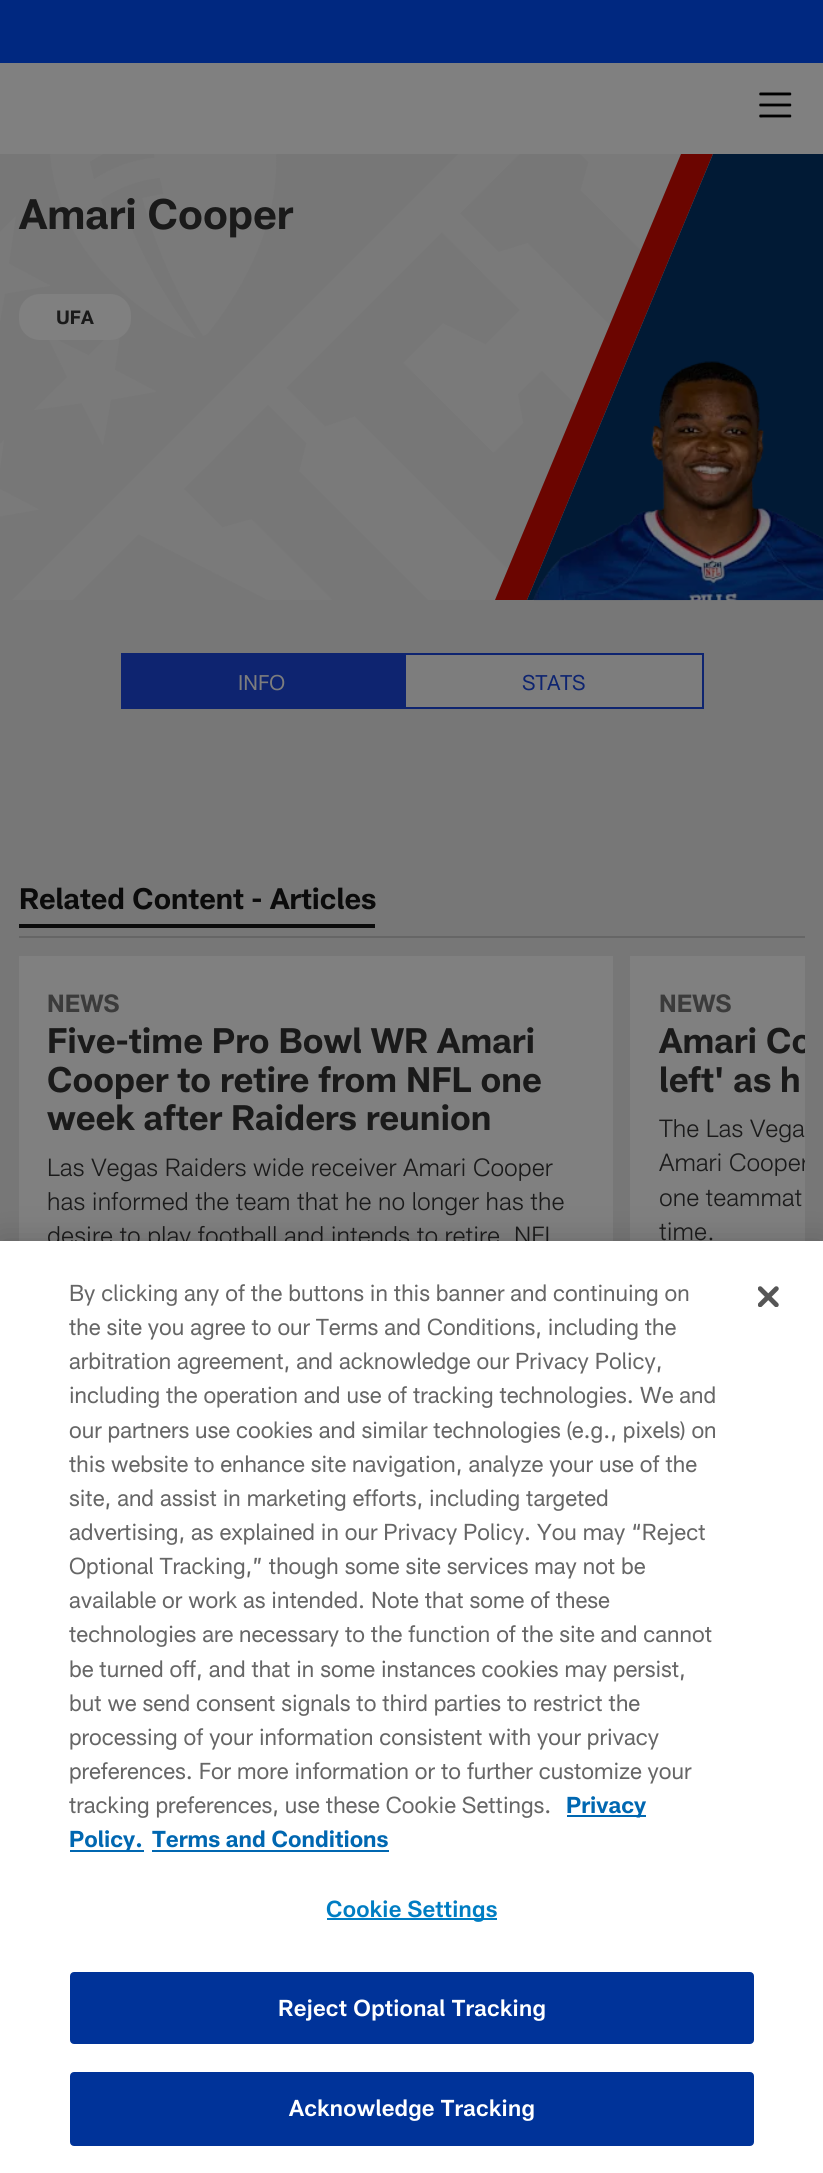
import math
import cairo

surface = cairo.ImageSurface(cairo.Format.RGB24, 823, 2173)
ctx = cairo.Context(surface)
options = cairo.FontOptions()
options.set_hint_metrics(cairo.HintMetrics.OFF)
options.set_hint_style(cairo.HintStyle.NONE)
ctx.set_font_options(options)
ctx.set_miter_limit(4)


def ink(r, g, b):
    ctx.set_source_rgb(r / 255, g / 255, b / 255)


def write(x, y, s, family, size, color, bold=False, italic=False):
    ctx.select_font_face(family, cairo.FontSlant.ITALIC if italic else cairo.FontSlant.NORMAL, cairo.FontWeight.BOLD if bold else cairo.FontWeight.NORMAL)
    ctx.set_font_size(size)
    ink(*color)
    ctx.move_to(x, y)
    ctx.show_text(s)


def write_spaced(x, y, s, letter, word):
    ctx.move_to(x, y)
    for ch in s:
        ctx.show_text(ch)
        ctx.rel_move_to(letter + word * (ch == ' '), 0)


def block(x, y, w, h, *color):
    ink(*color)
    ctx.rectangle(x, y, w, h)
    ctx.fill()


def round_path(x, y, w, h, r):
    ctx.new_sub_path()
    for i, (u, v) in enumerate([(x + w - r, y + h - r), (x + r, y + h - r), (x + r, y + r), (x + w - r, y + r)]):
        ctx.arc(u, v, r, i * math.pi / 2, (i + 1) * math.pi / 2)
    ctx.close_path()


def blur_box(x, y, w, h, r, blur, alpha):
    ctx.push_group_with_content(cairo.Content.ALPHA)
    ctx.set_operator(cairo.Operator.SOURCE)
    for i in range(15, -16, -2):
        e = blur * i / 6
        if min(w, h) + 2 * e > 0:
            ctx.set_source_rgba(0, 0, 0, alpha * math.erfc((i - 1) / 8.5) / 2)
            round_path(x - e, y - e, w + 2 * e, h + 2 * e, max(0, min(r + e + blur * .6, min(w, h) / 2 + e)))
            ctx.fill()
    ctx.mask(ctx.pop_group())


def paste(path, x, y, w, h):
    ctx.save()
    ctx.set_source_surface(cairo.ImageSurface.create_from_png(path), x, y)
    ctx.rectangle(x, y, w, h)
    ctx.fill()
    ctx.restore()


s1 = dict(family="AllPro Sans", size=42, color=(26, 26, 26), bold=True)
s2 = dict(family="AllPro Sans", size=19, color=(26, 26, 26), bold=True)
s3 = dict(family="AllPro Sans", size=21, color=(125, 125, 125))
s4 = dict(family="AllPro Sans", size=21, color=(14, 36, 112))
s5 = dict(family="AllPro Sans", size=29.25, color=(11, 11, 11), bold=True)
s6 = dict(family="AllPro Sans", size=24.5, color=(59, 59, 59), bold=True)
s7 = dict(family="AllPro Sans", size=35, color=(26, 26, 26), bold=True)
s8 = dict(family="AllPro Sans Light", size=24.5, color=(26, 26, 26))
s9 = dict(family="AllPro Sans", size=22.75, color=(102, 102, 102))
s10 = dict(family="AllPro Sans", size=22.75, color=(0, 103, 177), bold=True)

ink(119, 119, 119)
ctx.paint()
block(0, 63, 823, 91, 128, 128, 128)
block(0, 0, 823, 63, 0, 40, 128)
paste("pic1.png", 759, 92, 33, 26)
paste("pic2.png", 0, 154, 713, 446)
ink(107, 5, 0)
ctx.new_path()
ctx.move_to(713, 154)
ctx.line_to(527, 600)
ctx.line_to(495, 600)
ctx.line_to(681, 154)
ctx.close_path()
ctx.fill()
ink(1, 26, 53)
ctx.new_path()
ctx.move_to(527, 600)
ctx.line_to(713, 154)
ctx.line_to(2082, 154)
ctx.line_to(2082, 600)
ctx.close_path()
ctx.fill()
paste("pic3.png", 532, 361, 291, 240)
write(19, 229, "Amari Cooper", **s1)
ink(128, 128, 128)
round_path(19, 294, 112, 46, 21)
ctx.fill()
write(56, 324, "UFA", **s2)
block(121, 653, 283, 56, 14, 36, 112)
write(238, 690, "INFO", **s3)
ctx.rectangle(405, 654, 298, 54)
ctx.fill_preserve()
ink(14, 36, 112)
ctx.stroke()
write(522, 690, "STATS", **s4)
block(19, 936, 786, 2, 102, 102, 102)
block(19, 924, 356, 4, 11, 11, 11)
write(19, 909, "Related Content - Articles", **s5)
block(19, 956, 594, 285, 128, 128, 128)
write(47, 1012, "NEWS", **s6)
write(47, 1053, "Five-time Pro Bowl WR Amari", **s7)
write(47, 1092, "Cooper to retire from NFL one", **s7)
write(47, 1130, "week after Raiders reunion", **s7)
write(47, 1176, "Las Vegas Raiders wide receiver Amari Cooper", **s8)
write(47, 1210, "has informed the team that he no longer has the", **s8)
write(47, 1244, "desire to play football and intends to retire, NFL", **s8)
block(630, 956, 175, 285, 128, 128, 128)
write(659, 1012, "NEWS", **s6)
ctx.save()
ctx.rectangle(630, 956, 175, 880)
ctx.clip()
write(659, 1053, "Amari Co", **s7)
ctx.restore()
write(659, 1092, "left' as h", **s7)
write(659, 1137, "The Las Vega", **s8)
ctx.save()
ctx.rectangle(630, 956, 175, 880)
ctx.clip()
write(659, 1171, "Amari Cooper", **s8)
ctx.restore()
write(659, 1206, "one teammat", **s8)
write(659, 1240, "time.", **s8)
ink(0, 0, 0)
blur_box(0, 1241, 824, 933, 0, 16, 0.2)
block(0, 1241, 823, 932, 255, 255, 255)
write(69, 1301, "By clicking any of the buttons in this banner and continuing on", **s9)
write(69, 1335, "the site you agree to our Terms and Conditions, including the", **s9)
write(69, 1369, "arbitration agreement, and acknowledge our Privacy Policy,", **s9)
write(69, 1403, "including the operation and use of tracking technologies.", **s9)
write(640, 1403, "We and", **s9)
write(69, 1438, "our partners use cookies and similar technologies (e.g., pixels) on", **s9)
write(69, 1472, "this website to enhance site navigation, analyze your use of the", **s9)
write(69, 1506, "site, and assist in marketing efforts, including targeted", **s9)
write(69, 1540, "advertising, as explained in our Privacy Policy. You may “Reject", **s9)
write(69, 1574, "Optional Tracking,” though some site services may not be", **s9)
write(69, 1608, "available or work as intended. Note that some of these", **s9)
write(69, 1642, "technologies are necessary to the function of the site and cannot", **s9)
write(69, 1677, "be turned off, and that in some instances cookies may persist,", **s9)
write(69, 1711, "but we send consent signals to third parties to restrict the", **s9)
write(69, 1745, "processing of your information consistent with your privacy", **s9)
write(69, 1779, "preferences. For more information or to further customize your", **s9)
write(69, 1813, "tracking preferences, use these Cookie Settings.", **s9)
block(567, 1815, 79, 2, 0, 103, 177)
write(566, 1813, "Privacy", **s10)
block(70, 1850, 74, 2, 0, 103, 177)
write(69, 1847, "Policy.", **s10)
write(152, 1847, "Terms and Conditions", **s10)
block(152, 1850, 237, 2, 0, 103, 177)
block(327, 1918, 170, 2, 0, 125, 195)
ctx.select_font_face("AllPro Sans SemiBold")
write_spaced(326, 1917, "Cookie Settings", 0.25, 0)
ink(0, 51, 153)
round_path(71, 1973, 682, 70, 3)
ctx.fill_preserve()
ctx.stroke()
ink(255, 255, 255)
write_spaced(278, 2016, "Reject Optional Tracking", 0.25, 0)
ink(0, 51, 153)
round_path(71, 2073, 682, 72, 3)
ctx.fill_preserve()
ctx.stroke()
ink(255, 255, 255)
write_spaced(289, 2116, "Acknowledge Tracking", 0.25, 0)
paste("pic4.png", 758, 1286, 21, 21)
surface.write_to_png("screenshot.png")
